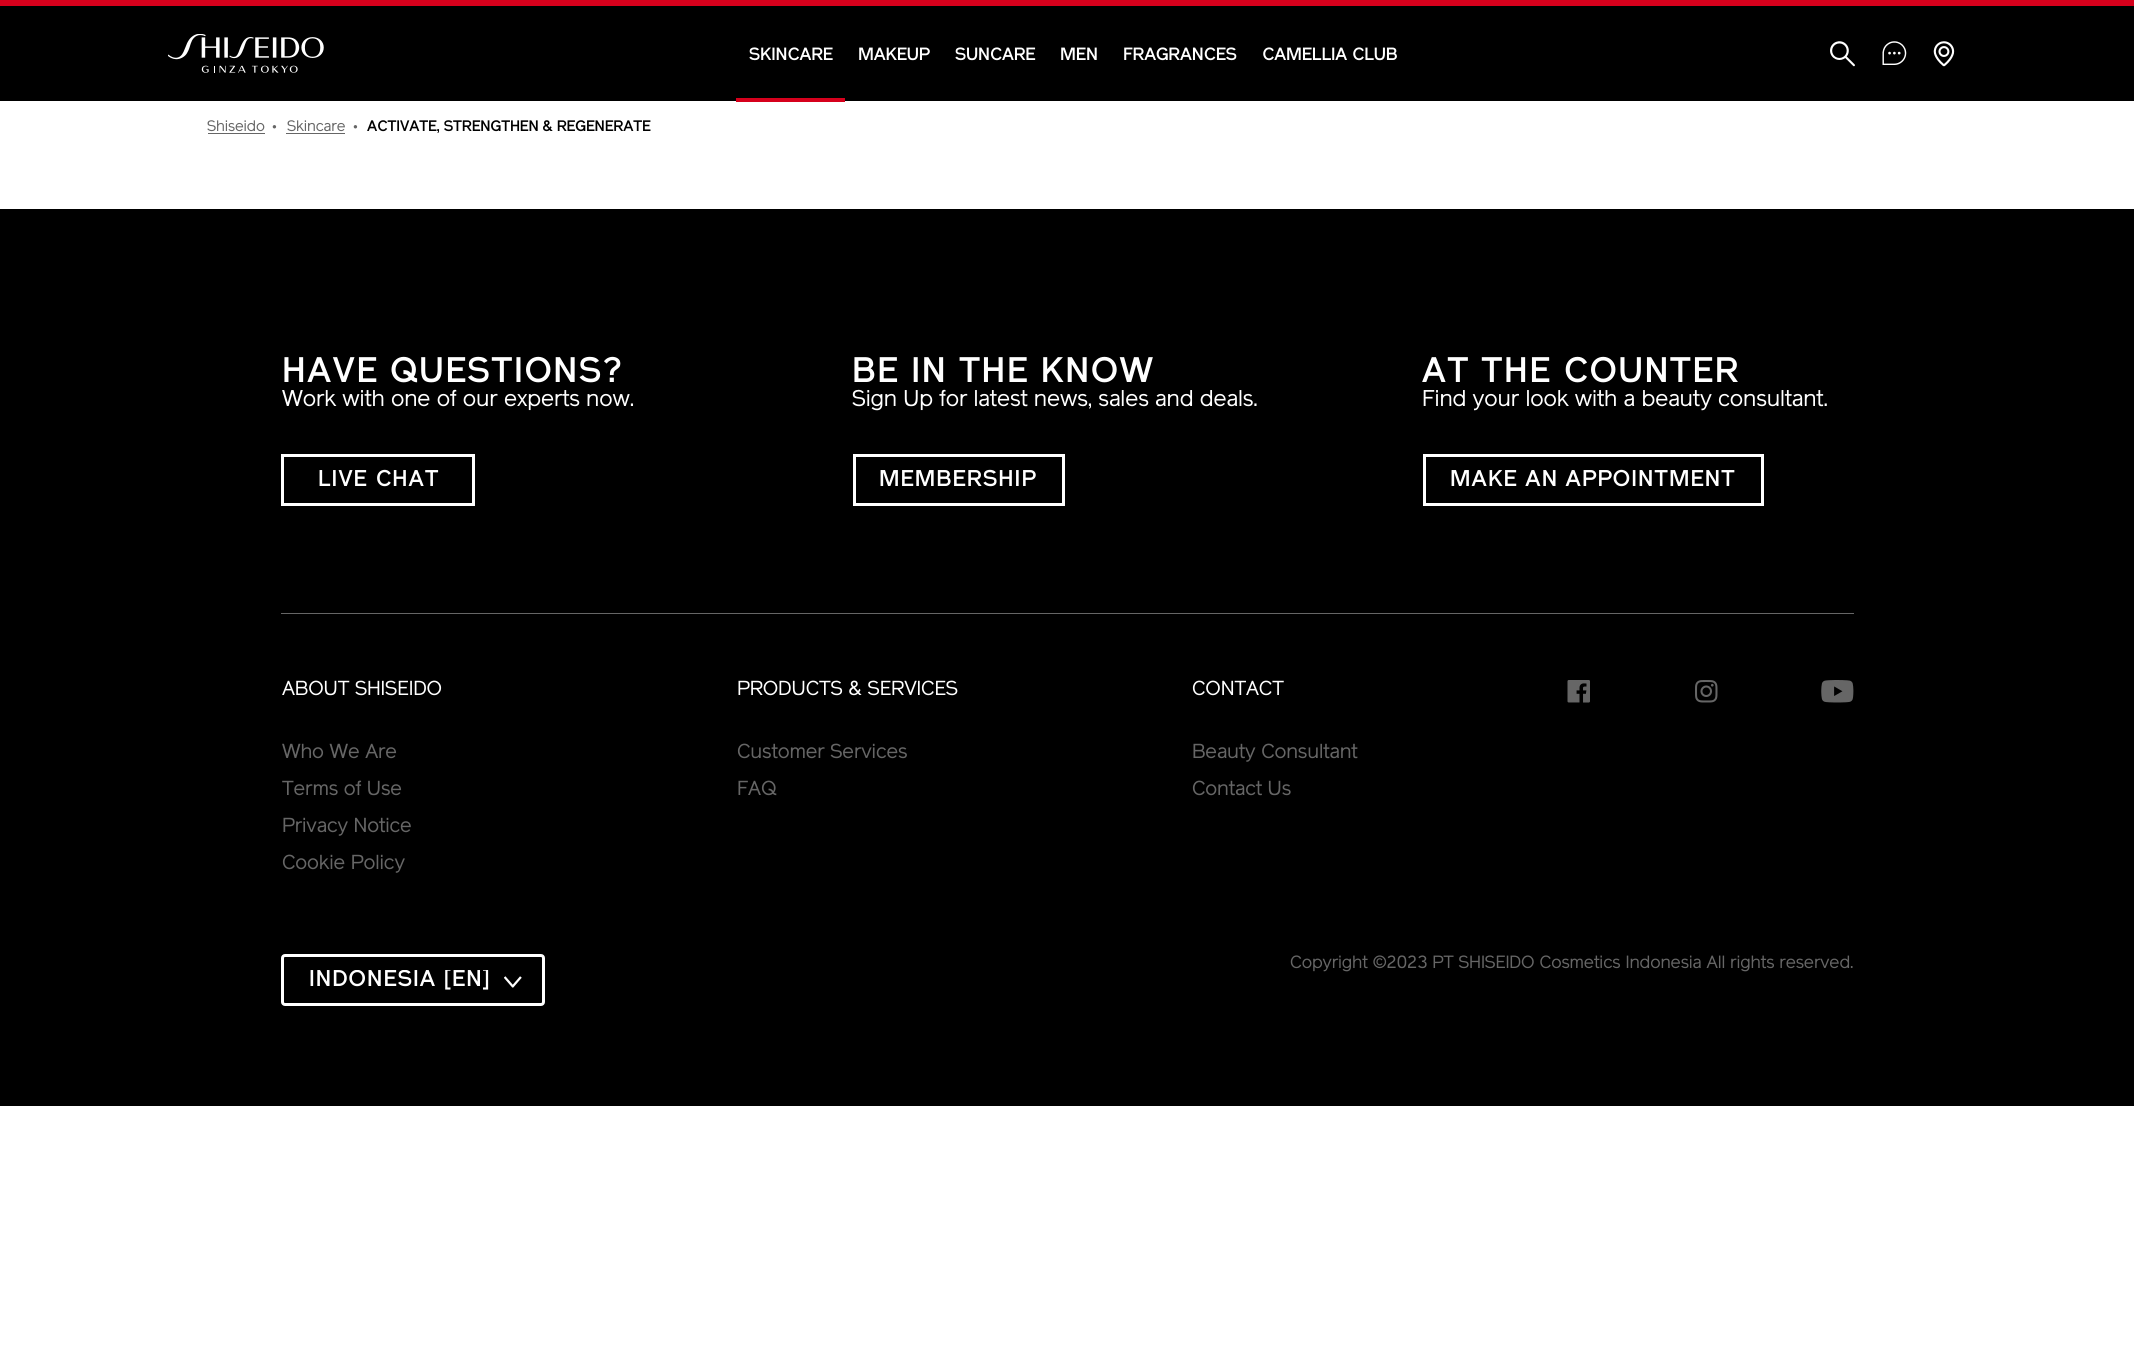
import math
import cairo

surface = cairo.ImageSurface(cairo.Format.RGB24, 2134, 1348)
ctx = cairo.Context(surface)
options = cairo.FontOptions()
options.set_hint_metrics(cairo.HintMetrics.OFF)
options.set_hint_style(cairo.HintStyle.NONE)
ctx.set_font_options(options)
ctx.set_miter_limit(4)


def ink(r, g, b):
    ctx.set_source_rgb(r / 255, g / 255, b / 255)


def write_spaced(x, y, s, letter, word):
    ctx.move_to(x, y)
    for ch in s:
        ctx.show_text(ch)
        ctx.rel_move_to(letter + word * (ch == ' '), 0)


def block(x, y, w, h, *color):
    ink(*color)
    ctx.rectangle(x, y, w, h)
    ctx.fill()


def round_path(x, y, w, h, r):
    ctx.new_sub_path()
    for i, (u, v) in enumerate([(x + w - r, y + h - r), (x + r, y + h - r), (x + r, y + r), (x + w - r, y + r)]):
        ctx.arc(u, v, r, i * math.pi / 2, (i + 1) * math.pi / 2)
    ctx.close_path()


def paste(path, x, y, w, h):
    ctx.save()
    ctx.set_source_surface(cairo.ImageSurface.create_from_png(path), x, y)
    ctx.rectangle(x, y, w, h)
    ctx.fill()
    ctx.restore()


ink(255, 255, 255)
ctx.paint()
block(0, 6, 2134, 95, 0, 0, 0)
block(0, 0, 2134, 6, 214, 0, 28)
paste("pic1.png", 168, 34, 156, 39)
block(736, 98, 109, 4, 214, 0, 28)
ctx.select_font_face("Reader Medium")
ctx.set_font_size(17.5)
ink(255, 255, 255)
write_spaced(749, 60, "SKINCARE", -0.12, 0)
write_spaced(858, 60, "MAKEUP", -0.12, 0)
write_spaced(955, 60, "SUNCARE", -0.12, 0)
write_spaced(1060, 60, "MEN", -0.12, 0)
write_spaced(1123, 60, "FRAGRANCES", -0.12, 0)
write_spaced(1262, 60, "CAMELLIA CLUB", -0.12, 0)
paste("pic2.png", 1830, 41, 25, 26)
paste("pic3.png", 1882, 41, 25, 24)
paste("pic4.png", 1933, 41, 22, 26)
ctx.select_font_face("Reader")
ctx.set_font_size(15)
ink(102, 102, 102)
write_spaced(207, 131, "Shiseido", -0.12, 0)
block(208, 133, 57, 1, 102, 102, 102)
ctx.select_font_face("Liberation Sans")
ctx.set_font_size(8)
write_spaced(272, 129, "●", -0.12, 0)
ctx.select_font_face("Reader")
ctx.set_font_size(15)
write_spaced(287, 131, "Skincare", -0.12, 0)
block(286, 133, 59, 1, 102, 102, 102)
ctx.select_font_face("Liberation Sans")
ctx.set_font_size(8)
write_spaced(353, 129, "●", -0.12, 0)
ctx.select_font_face("Reader Medium")
ctx.set_font_size(15)
ink(0, 0, 0)
write_spaced(367, 131, "ACTIVATE, STRENGTHEN & REGENERATE", -0.12, 0)
block(0, 209, 2134, 897, 0, 0, 0)
ctx.set_font_size(35)
ink(255, 255, 255)
write_spaced(282, 382, "HAVE QUESTIONS?", 1.75, 0)
ctx.select_font_face("Reader")
ctx.set_font_size(22.5)
write_spaced(282, 406, "Work with one of our experts now.", -0.12, 0)
ctx.rectangle(282.5, 455.5, 191, 49)
ctx.set_line_width(3)
ctx.stroke()
ctx.select_font_face("Reader Medium")
write_spaced(318, 486, "LIVE CHAT", 1.1, 0)
ctx.set_font_size(35)
write_spaced(852, 382, "BE IN THE KNOW", 1.75, 0)
ctx.select_font_face("Reader")
ctx.set_font_size(22.5)
write_spaced(852, 406, "Sign Up for latest news, sales and deals.", -0.12, 0)
ctx.rectangle(854.5, 455.5, 209, 49)
ctx.stroke()
ctx.select_font_face("Reader Medium")
write_spaced(879, 486, "MEMBERSHIP", 1.1, 0)
ctx.set_font_size(35)
write_spaced(1422, 382, "AT THE COUNTER", 1.75, 0)
ctx.select_font_face("Reader")
ctx.set_font_size(22.5)
write_spaced(1422, 406, "Find your look with a beauty consultant.", -0.12, 0)
ctx.rectangle(1424.5, 455.5, 338, 49)
ctx.stroke()
ctx.select_font_face("Reader Medium")
write_spaced(1450, 486, "MAKE AN APPOINTMENT", 1.1, 0)
block(281, 613, 1573, 1, 102, 102, 102)
ctx.select_font_face("Reader")
ctx.set_font_size(20)
ink(255, 255, 255)
write_spaced(282, 695, "ABOUT SHISEIDO", -0.12, 0)
ink(102, 102, 102)
write_spaced(282, 758, "Who We Are", -0.12, 0)
write_spaced(282, 795, "Terms of Use", -0.12, 0)
write_spaced(282, 832, "Privacy Notice", -0.12, 0)
write_spaced(282, 869, "Cookie Policy", -0.12, 0)
ink(255, 255, 255)
write_spaced(737, 695, "PRODUCTS & SERVICES", -0.12, 0)
ink(102, 102, 102)
write_spaced(737, 758, "Customer Services", -0.12, 0)
write_spaced(737, 795, "FAQ", -0.12, 0)
ink(255, 255, 255)
write_spaced(1192, 695, "CONTACT", -0.12, 0)
ink(102, 102, 102)
write_spaced(1192, 758, "Beauty Consultant", -0.12, 0)
write_spaced(1192, 795, "Contact Us", -0.12, 0)
paste("pic5.png", 1567, 680, 23, 23)
paste("pic6.png", 1695, 680, 23, 23)
paste("pic7.png", 1821, 680, 33, 23)
ctx.set_font_size(17.5)
write_spaced(1290, 968, "Copyright ©2023 PT SHISEIDO Cosmetics Indonesia All rights reserved.", -0.12, 0)
round_path(282.5, 955.5, 261, 49, 2.5)
ink(255, 255, 255)
ctx.stroke()
ctx.save()
ctx.rectangle(309, 970, 182, 23)
ctx.clip()
ctx.select_font_face("Reader Medium")
ctx.set_font_size(22.5)
write_spaced(309, 986, "INDONESIA [EN]", 1.1, 0)
ctx.restore()
paste("pic8.png", 504, 976, 18, 12)
surface.write_to_png("screenshot.png")
